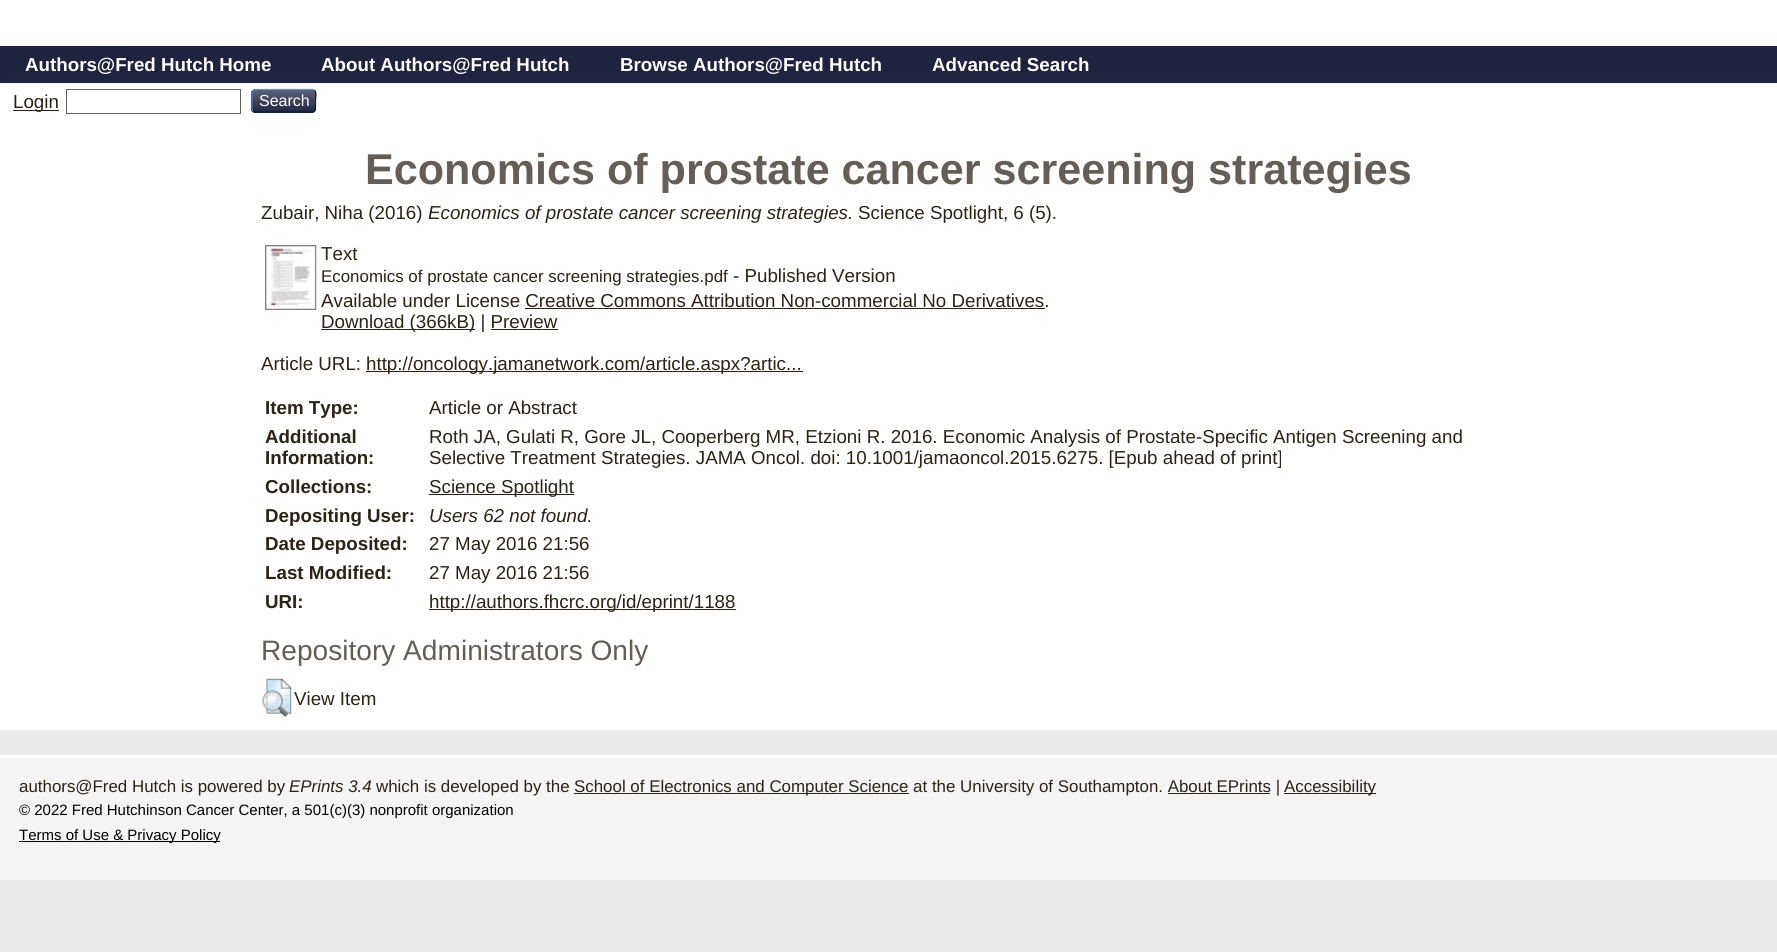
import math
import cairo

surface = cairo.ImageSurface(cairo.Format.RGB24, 1777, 952)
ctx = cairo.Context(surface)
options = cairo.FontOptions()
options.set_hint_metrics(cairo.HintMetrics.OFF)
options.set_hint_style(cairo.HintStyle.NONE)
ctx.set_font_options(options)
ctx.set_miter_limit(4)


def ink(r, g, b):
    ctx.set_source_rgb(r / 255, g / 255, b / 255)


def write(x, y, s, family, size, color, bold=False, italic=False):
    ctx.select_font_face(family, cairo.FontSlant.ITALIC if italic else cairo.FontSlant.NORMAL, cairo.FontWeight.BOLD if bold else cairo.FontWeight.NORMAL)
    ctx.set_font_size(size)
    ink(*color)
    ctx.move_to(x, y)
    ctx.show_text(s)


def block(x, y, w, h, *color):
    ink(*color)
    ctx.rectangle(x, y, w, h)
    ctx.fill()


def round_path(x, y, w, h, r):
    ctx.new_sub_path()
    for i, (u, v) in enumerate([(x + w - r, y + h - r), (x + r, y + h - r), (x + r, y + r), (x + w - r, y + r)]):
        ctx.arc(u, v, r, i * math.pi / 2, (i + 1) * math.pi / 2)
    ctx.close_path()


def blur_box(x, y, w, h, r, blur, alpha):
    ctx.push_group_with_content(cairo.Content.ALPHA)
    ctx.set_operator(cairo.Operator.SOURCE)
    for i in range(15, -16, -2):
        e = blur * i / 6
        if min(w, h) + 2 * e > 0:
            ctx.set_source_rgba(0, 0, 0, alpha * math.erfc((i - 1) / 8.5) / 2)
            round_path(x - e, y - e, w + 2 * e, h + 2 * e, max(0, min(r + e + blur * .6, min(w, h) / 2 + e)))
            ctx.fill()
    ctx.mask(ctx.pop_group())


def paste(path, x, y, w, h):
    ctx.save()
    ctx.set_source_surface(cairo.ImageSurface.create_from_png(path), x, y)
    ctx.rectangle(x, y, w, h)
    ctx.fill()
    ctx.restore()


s1 = dict(family="Liberation Sans", size=18.75, color=(255, 255, 255), bold=True)
s2 = dict(family="Liberation Sans", size=18.75, color=(44, 35, 23))
s3 = dict(family="Liberation Sans", size=16, color=(255, 255, 255))
s4 = dict(family="Liberation Sans", size=43.1, color=(100, 94, 87), bold=True)
s5 = dict(family="Liberation Sans", size=18.75, color=(44, 35, 23), italic=True)
s6 = dict(family="Liberation Sans", size=16.9, color=(44, 35, 23))
s7 = dict(family="Liberation Sans", size=18.75, color=(44, 35, 23), bold=True)
s8 = dict(family="Liberation Sans", size=28.1, color=(100, 94, 87))
s9 = dict(family="Liberation Sans", size=16.9, color=(44, 35, 23), italic=True)
s10 = dict(family="Liberation Sans", size=15, color=(0, 0, 0))

ink(234, 234, 234)
ctx.paint()
block(0, 0, 1777, 46, 255, 255, 255)
block(0, 46, 1777, 37, 31, 35, 62)
block(0, 83, 1777, 1, 255, 255, 255)
ink(100, 100, 100)
blur_box(0, 86, 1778, 35, 0, 4, 0.3)
write(25, 71, "Authors@Fred Hutch Home", **s1)
write(321, 71, "About Authors@Fred Hutch", **s1)
write(620, 71, "Browse Authors@Fred Hutch", **s1)
write(932, 71, "Advanced Search", **s1)
block(0, 84, 1777, 646, 255, 255, 255)
block(13, 110, 46, 1, 44, 35, 23)
write(13, 108, "Login", **s2)
ctx.rectangle(66.5, 89.5, 174, 24)
ink(96, 96, 96)
ctx.set_line_width(1)
ctx.stroke()
ink(31, 35, 62)
round_path(251, 89, 65, 24, 4)
ctx.fill()
paste("pic1.png", 251, 89, 65, 22)
ctx.new_path()
ctx.move_to(253, 90.5)
ctx.line_to(254.5, 89.5)
ctx.line_to(313, 89.5)
ctx.line_to(314.5, 90.5)
ink(91, 151, 199)
ctx.set_line_width(1.2)
ctx.stroke()
ctx.new_path()
ctx.move_to(314.5, 90.5)
ctx.curve_to(317, 92.5, 315.5, 98, 315.5, 100.5)
ctx.curve_to(315.5, 113.5, 317, 112, 303, 112)
ctx.line_to(264.5, 112)
ctx.curve_to(264, 112, 255, 113.5, 253, 111)
ink(13, 33, 49)
ctx.stroke()
ctx.new_path()
ctx.move_to(253, 111)
ctx.curve_to(252, 110.5, 252, 109.5, 252, 109)
ctx.line_to(252, 92.5)
ctx.curve_to(252, 91.5, 252, 91, 253, 90.5)
ink(82, 135, 179)
ctx.stroke()
write(259, 106, "Search", **s3)
write(365, 184, "Economics of prostate cancer screening strategies", **s4)
write(261, 219, "Zubair, Niha (2016)", **s2)
write(428, 219, "Economics of prostate cancer screening strategies.", **s5)
write(858, 219, "Science Spotlight, 6 (5).", **s2)
paste("pic2.png", 265, 245, 52, 65)
write(321, 260, "Text", **s2)
write(321, 282, "Economics of prostate cancer screening strategies.pdf", **s6)
write(733, 282, "- Published Version", **s2)
write(321, 307, "Available under License Creative Commons Attribution Non-commercial No Derivatives.", **s2)
block(525, 308, 520, 1, 44, 35, 23)
block(321, 329, 154, 1, 44, 35, 23)
write(321, 328, "Download (366kB) | Preview", **s2)
block(491, 329, 67, 1, 44, 35, 23)
write(261, 370, "Article URL:", **s2)
block(366, 371, 437, 1, 44, 35, 23)
write(366, 370, "http://oncology.jamanetwork.com/article.aspx?artic...", **s2)
write(265, 414, "Item Type:", **s7)
write(429, 414, "Article or Abstract", **s2)
write(265, 443, "Additional", **s7)
write(265, 464, "Information:", **s7)
write(429, 443, "Roth JA, Gulati R, Gore JL, Cooperberg MR, Etzioni R. 2016. Economic Analysis of Prostate-Specific Antigen Screening and", **s2)
write(429, 464, "Selective Treatment Strategies. JAMA Oncol. doi: 10.1001/jamaoncol.2015.6275. [Epub ahead of print]", **s2)
write(265, 493, "Collections:", **s7)
block(429, 494, 145, 1, 44, 35, 23)
write(429, 493, "Science Spotlight", **s2)
write(265, 522, "Depositing User:", **s7)
write(429, 522, "Users 62 not found.", **s5)
write(265, 550, "Date Deposited:", **s7)
write(429, 550, "27 May 2016 21:56", **s2)
write(265, 579, "Last Modified:", **s7)
write(429, 579, "27 May 2016 21:56", **s2)
write(265, 608, "URI:", **s7)
block(429, 609, 307, 1, 44, 35, 23)
write(429, 608, "http://authors.fhcrc.org/id/eprint/1188", **s2)
write(261, 660, "Repository Administrators Only", **s8)
paste("pic3.png", 262, 678, 30, 39)
write(294, 705, "View Item", **s2)
block(0, 758, 1777, 122, 244, 244, 244)
block(0, 755, 1777, 3, 255, 255, 255)
write(19, 792, "authors@Fred Hutch is powered by", **s6)
write(289, 792, "EPrints 3.4", **s9)
write(376, 792, "which is developed by the", **s6)
block(574, 793, 335, 1, 44, 35, 23)
write(574, 792, "School of Electronics and Computer Science at the University of Southampton. About EPrints |", **s6)
block(1168, 793, 102, 1, 44, 35, 23)
block(1284, 793, 92, 1, 44, 35, 23)
write(1284, 792, "Accessibility", **s6)
write(19, 815, "© 2022 Fred Hutchinson Cancer Center, a 501(c)(3) nonprofit organization", **s10)
block(19, 841, 201, 1, 0, 0, 0)
write(19, 840, "Terms of Use & Privacy Policy", **s10)
surface.write_to_png("screenshot.png")
